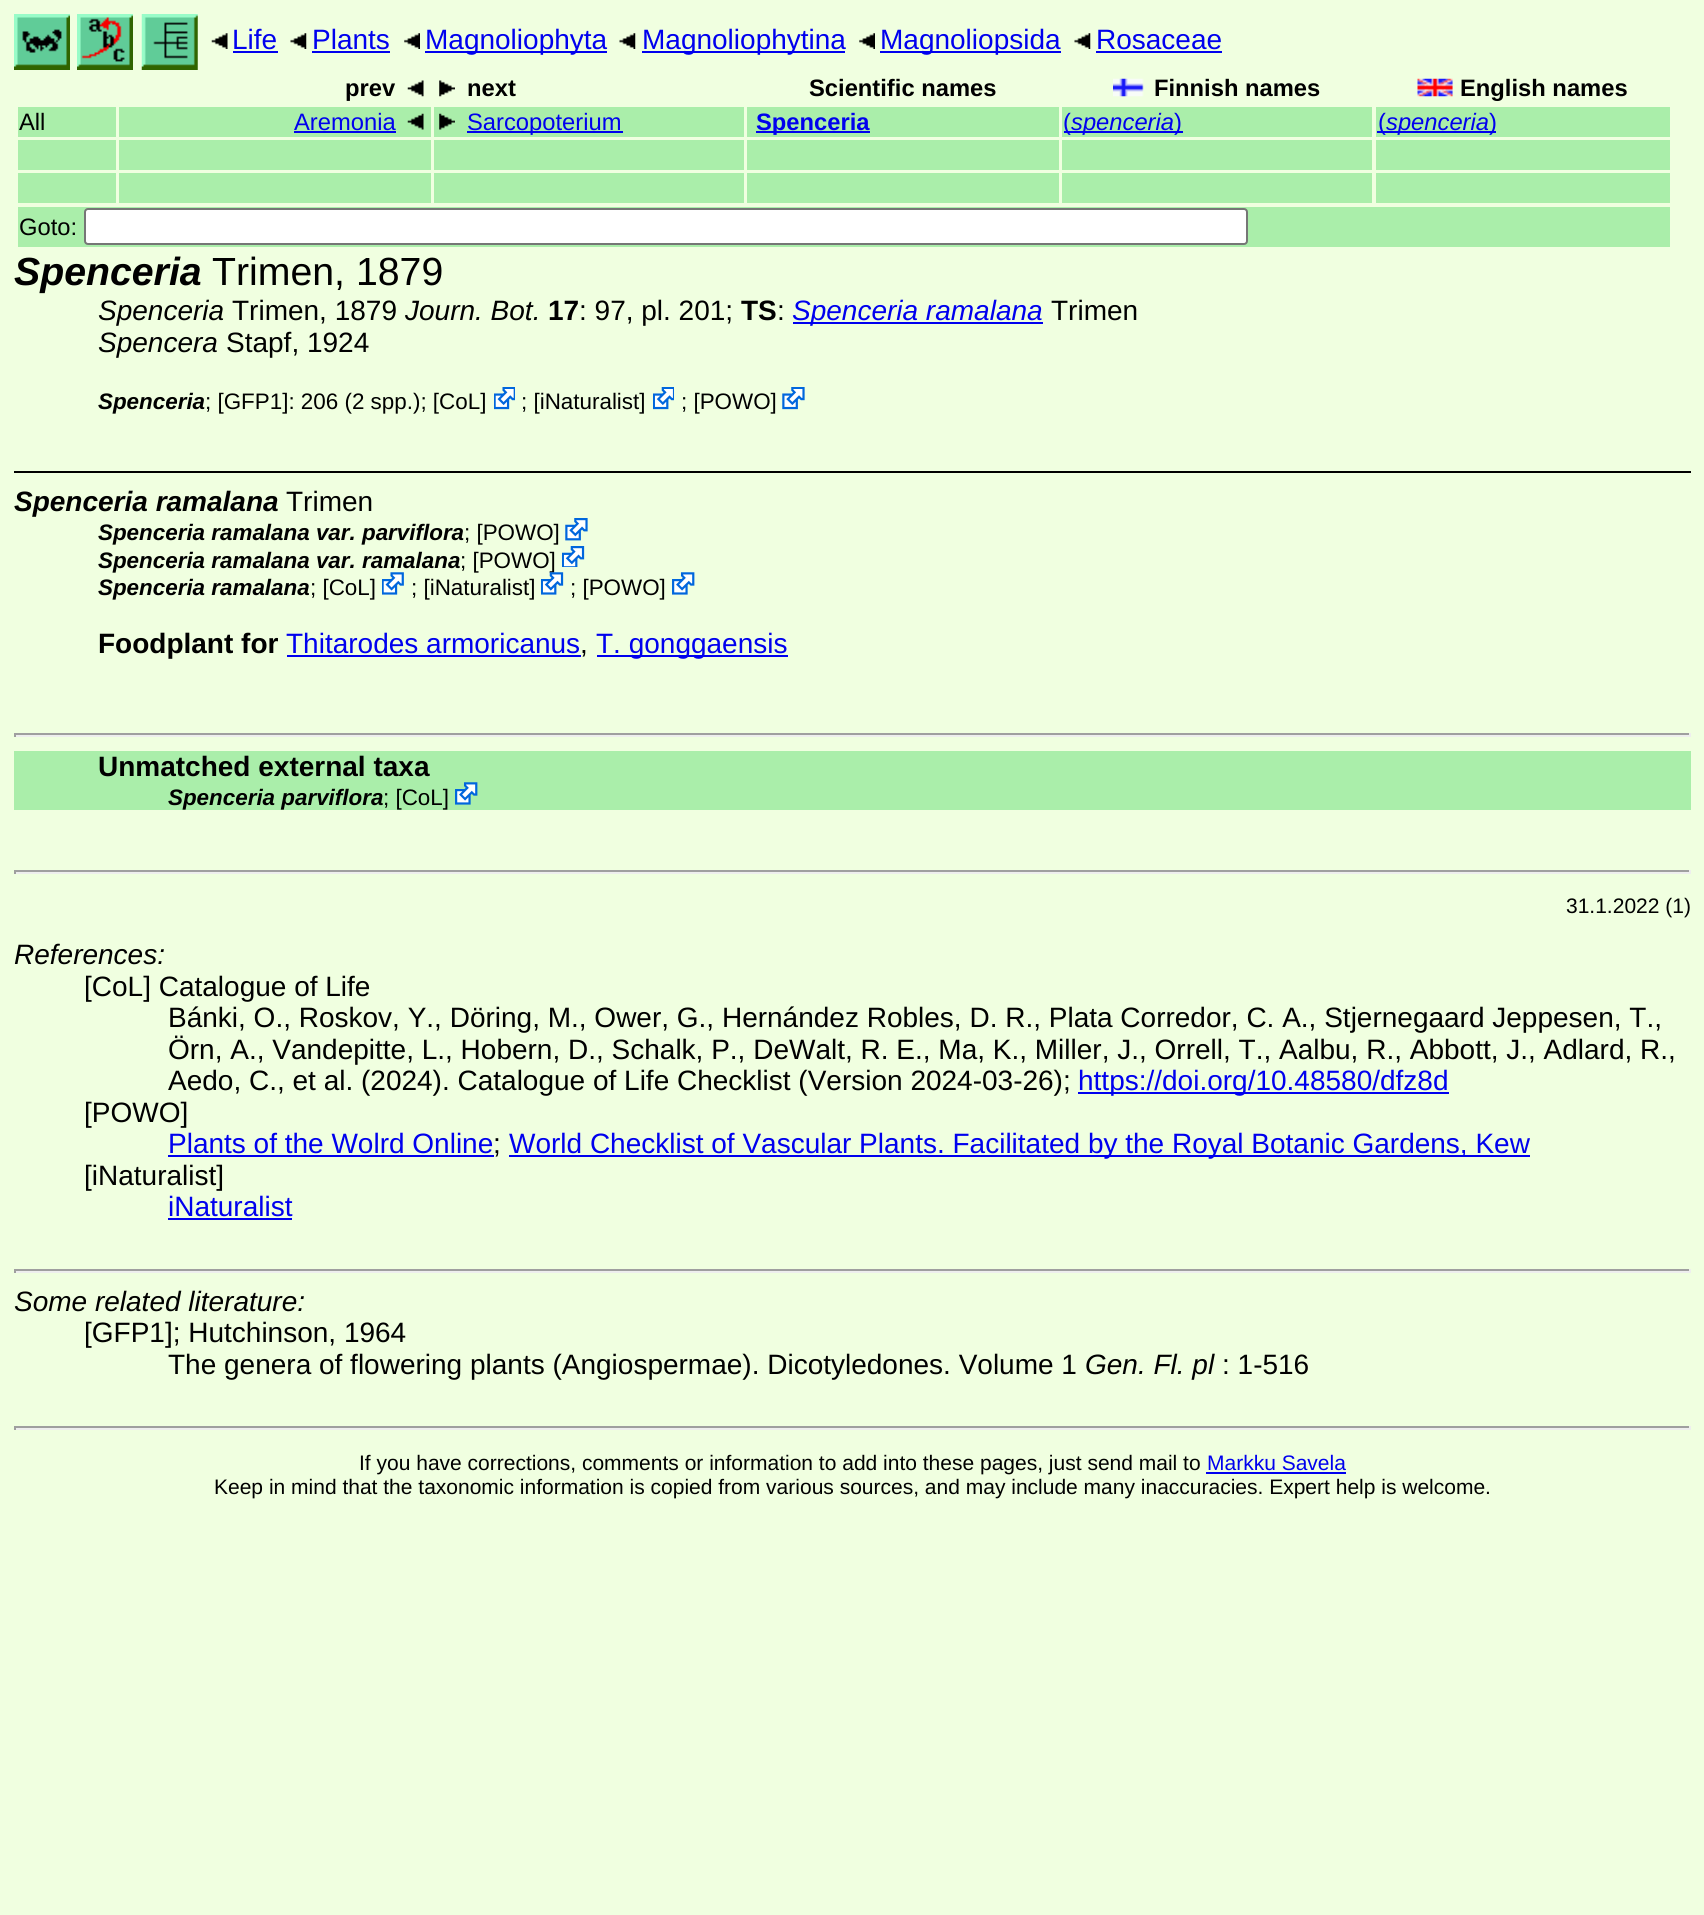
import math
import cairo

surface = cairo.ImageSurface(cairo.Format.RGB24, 1704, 1915)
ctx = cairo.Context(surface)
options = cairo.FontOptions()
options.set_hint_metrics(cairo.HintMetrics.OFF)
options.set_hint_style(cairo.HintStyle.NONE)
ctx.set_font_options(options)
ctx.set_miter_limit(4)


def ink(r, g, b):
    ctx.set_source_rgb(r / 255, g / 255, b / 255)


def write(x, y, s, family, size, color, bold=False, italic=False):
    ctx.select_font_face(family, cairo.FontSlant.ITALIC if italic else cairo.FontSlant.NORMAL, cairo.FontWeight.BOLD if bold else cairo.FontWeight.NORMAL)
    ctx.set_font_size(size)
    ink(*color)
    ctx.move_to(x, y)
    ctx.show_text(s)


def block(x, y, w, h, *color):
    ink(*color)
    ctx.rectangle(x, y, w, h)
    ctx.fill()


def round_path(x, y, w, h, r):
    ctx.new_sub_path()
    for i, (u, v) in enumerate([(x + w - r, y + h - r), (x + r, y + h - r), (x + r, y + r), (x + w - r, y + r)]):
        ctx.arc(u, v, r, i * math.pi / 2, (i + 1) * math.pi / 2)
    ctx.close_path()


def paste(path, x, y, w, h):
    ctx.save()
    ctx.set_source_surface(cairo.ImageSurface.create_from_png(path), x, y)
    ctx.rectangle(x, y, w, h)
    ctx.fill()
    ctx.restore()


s1 = dict(family="Liberation Sans", size=28, color=(0, 0, 238))
s2 = dict(family="Liberation Sans", size=23.75, color=(0, 0, 0), bold=True)
s3 = dict(family="Liberation Sans", size=23.75, color=(0, 0, 0))
s4 = dict(family="Liberation Sans", size=23.75, color=(0, 0, 238))
s5 = dict(family="Liberation Sans", size=23.75, color=(0, 0, 238), bold=True)
s6 = dict(family="Liberation Sans", size=23.75, color=(0, 0, 238), italic=True)
s7 = dict(family="Liberation Sans", size=39.25, color=(0, 0, 0), bold=True, italic=True)
s8 = dict(family="Liberation Sans", size=39.25, color=(0, 0, 0))
s9 = dict(family="Liberation Sans", size=28, color=(0, 0, 0), italic=True)
s10 = dict(family="Liberation Sans", size=28, color=(0, 0, 0))
s11 = dict(family="Liberation Sans", size=28, color=(0, 0, 0), bold=True)
s12 = dict(family="Liberation Sans", size=28, color=(0, 0, 238), italic=True)
s13 = dict(family="Liberation Sans", size=22.4, color=(0, 0, 0), bold=True, italic=True)
s14 = dict(family="Liberation Sans", size=22.4, color=(0, 0, 0))
s15 = dict(family="Liberation Sans", size=28, color=(0, 0, 0), bold=True, italic=True)
s16 = dict(family="Liberation Sans", size=21, color=(0, 0, 0))
s17 = dict(family="Liberation Sans", size=21, color=(0, 0, 238))

ink(240, 255, 224)
ctx.paint()
paste("pic1.png", 14, 14, 56, 56)
paste("pic2.png", 77, 14, 56, 56)
paste("pic3.png", 141, 14, 57, 56)
paste("pic4.png", 211, 33, 17, 16)
write(232, 49, "Life", **s1)
block(233, 51, 45, 2, 0, 0, 238)
paste("pic5.png", 290, 33, 17, 16)
write(312, 49, "Plants", **s1)
block(312, 51, 78, 2, 0, 0, 238)
paste("pic6.png", 404, 33, 16, 16)
block(425, 51, 182, 2, 0, 0, 238)
write(425, 49, "Magnoliophyta", **s1)
paste("pic7.png", 619, 33, 17, 16)
block(642, 51, 203, 2, 0, 0, 238)
write(642, 49, "Magnoliophytina", **s1)
paste("pic6.png", 859, 33, 16, 16)
block(880, 51, 181, 2, 0, 0, 238)
write(880, 49, "Magnoliopsida", **s1)
paste("pic8.png", 1074, 33, 17, 16)
write(1096, 49, "Rosaceae", **s1)
block(1096, 51, 126, 2, 0, 0, 238)
write(345, 96, "prev", **s2)
paste("pic9.png", 407, 80, 17, 17)
paste("pic10.png", 439, 80, 16, 17)
write(467, 96, "next", **s2)
write(809, 96, "Scientific names", **s2)
paste("pic11.png", 1113, 78, 31, 19)
write(1154, 96, "Finnish names", **s2)
paste("pic12.png", 1417, 78, 36, 19)
write(1460, 96, "English names", **s2)
block(18, 107, 98, 30, 170, 238, 170)
write(19, 130, "All", **s3)
block(119, 107, 312, 30, 170, 238, 170)
write(294, 130, "Aremonia", **s4)
block(294, 131, 102, 2, 0, 0, 238)
paste("pic13.png", 407, 113, 17, 17)
block(434, 107, 310, 30, 170, 238, 170)
paste("pic14.png", 439, 113, 16, 17)
block(467, 131, 156, 2, 0, 0, 238)
write(467, 130, "Sarcopoterium", **s4)
block(747, 107, 312, 30, 170, 238, 170)
block(756, 131, 114, 2, 0, 0, 238)
write(756, 130, "Spenceria", **s5)
block(1062, 107, 310, 30, 170, 238, 170)
block(1064, 131, 7, 2, 0, 0, 238)
write(1063, 130, "(", **s4)
block(1071, 131, 112, 2, 0, 0, 238)
write(1071, 130, "spenceria", **s6)
write(1174, 130, ")", **s4)
block(1376, 107, 294, 30, 170, 238, 170)
block(1377, 131, 119, 2, 0, 0, 238)
write(1378, 130, "(", **s4)
write(1386, 130, "spenceria", **s6)
write(1489, 130, ")", **s4)
block(18, 140, 98, 30, 170, 238, 170)
block(119, 140, 312, 30, 170, 238, 170)
block(434, 140, 310, 30, 170, 238, 170)
block(747, 140, 312, 30, 170, 238, 170)
block(1062, 140, 310, 30, 170, 238, 170)
block(1376, 140, 294, 30, 170, 238, 170)
block(18, 173, 98, 30, 170, 238, 170)
block(119, 173, 312, 30, 170, 238, 170)
block(434, 173, 310, 30, 170, 238, 170)
block(747, 173, 312, 30, 170, 238, 170)
block(1062, 173, 310, 30, 170, 238, 170)
block(1376, 173, 294, 30, 170, 238, 170)
block(18, 207, 1652, 40, 170, 238, 170)
write(19, 235, "Goto:", **s3)
ink(255, 255, 255)
round_path(85, 209, 1162, 35, 3)
ctx.fill_preserve()
ink(118, 118, 118)
ctx.stroke()
write(14, 285, "Spenceria", **s7)
write(212, 285, "Trimen, 1879", **s8)
write(98, 320, "Spenceria", **s9)
write(232, 320, "Trimen, 1879", **s10)
write(405, 320, "Journ. Bot.", **s9)
write(548, 320, "17", **s11)
write(579, 320, ": 97, pl. 201;", **s10)
write(741, 320, "TS", **s11)
write(777, 320, ":", **s10)
block(793, 322, 250, 2, 0, 0, 238)
write(792, 320, "Spenceria ramalana", **s12)
write(1051, 320, "Trimen", **s10)
write(98, 352, "Spencera", **s9)
write(226, 352, "Stapf, 1924", **s10)
write(98, 409, "Spenceria", **s13)
write(205, 409, "; [GFP1]: 206 (2 spp.); [CoL]", **s14)
paste("pic15.png", 494, 387, 21, 23)
write(521, 409, "; [iNaturalist]", **s14)
paste("pic16.png", 653, 387, 21, 23)
write(681, 409, "; [POWO]", **s14)
paste("pic17.png", 782, 387, 23, 23)
block(14, 471, 1677, 2, 0, 0, 0)
write(14, 511, "Spenceria ramalana", **s15)
write(286, 511, "Trimen", **s10)
write(98, 540, "Spenceria ramalana var. parviflora", **s13)
write(464, 540, "; [POWO]", **s14)
paste("pic18.png", 565, 518, 23, 23)
write(98, 568, "Spenceria ramalana var. ramalana", **s13)
write(460, 568, "; [POWO]", **s14)
paste("pic19.png", 562, 546, 23, 21)
write(98, 595, "Spenceria ramalana", **s13)
write(310, 595, "; [CoL]", **s14)
paste("pic20.png", 382, 572, 22, 23)
write(411, 595, "; [iNaturalist]", **s14)
paste("pic21.png", 541, 572, 23, 23)
write(570, 595, "; [POWO]", **s14)
paste("pic22.png", 672, 572, 23, 23)
write(98, 653, "Foodplant for", **s11)
write(286, 653, "Thitarodes armoricanus", **s1)
block(287, 655, 294, 2, 0, 0, 238)
write(580, 653, ",", **s10)
block(597, 655, 191, 2, 0, 0, 238)
write(596, 653, "T. gonggaensis", **s1)
block(14, 733, 1677, 2, 159, 159, 159)
block(1689, 733, 2, 4, 238, 238, 238)
block(14, 735, 1677, 2, 238, 238, 238)
block(14, 733, 2, 4, 159, 159, 159)
block(14, 751, 1677, 59, 170, 238, 170)
write(98, 776, "Unmatched external taxa", **s11)
write(168, 805, "Spenceria parviflora", **s13)
write(383, 805, "; [CoL]", **s14)
paste("pic23.png", 455, 782, 23, 23)
block(14, 870, 1677, 2, 159, 159, 159)
block(1689, 870, 2, 4, 238, 238, 238)
block(14, 872, 1677, 2, 238, 238, 238)
block(14, 870, 2, 4, 159, 159, 159)
write(1566, 913, "31.1.2022 (1)", **s16)
write(14, 964, "References:", **s9)
write(84, 996, "[CoL] Catalogue of Life", **s10)
write(168, 1027, "Bánki, O., Roskov, Y., Döring, M., Ower, G., Hernández Robles, D. R., Plata Corredor, C. A., Stjernegaard Jeppesen, T.,", **s10)
write(168, 1059, "Örn, A., Vandepitte, L., Hobern, D., Schalk, P., DeWalt, R. E., Ma, K., Miller, J., Orrell, T., Aalbu, R., Abbott, J., Adlard, R.,", **s10)
write(168, 1090, "Aedo, C., et al. (2024). Catalogue of Life Checklist (Version 2024-03-26);", **s10)
block(1078, 1092, 371, 2, 0, 0, 238)
write(1078, 1090, "https://doi.org/10.48580/dfz8d", **s1)
write(84, 1122, "[POWO]", **s10)
write(168, 1153, "Plants of the Wolrd Online", **s1)
block(168, 1155, 326, 2, 0, 0, 238)
write(493, 1153, ";", **s10)
block(509, 1155, 1021, 2, 0, 0, 238)
write(509, 1153, "World Checklist of Vascular Plants. Facilitated by the Royal Botanic Gardens, Kew", **s1)
write(84, 1185, "[iNaturalist]", **s10)
write(168, 1216, "iNaturalist", **s1)
block(168, 1218, 124, 2, 0, 0, 238)
block(14, 1269, 1677, 2, 159, 159, 159)
block(1689, 1269, 2, 4, 238, 238, 238)
block(14, 1271, 1677, 2, 238, 238, 238)
block(14, 1269, 2, 4, 159, 159, 159)
write(14, 1311, "Some related literature:", **s9)
write(84, 1342, "[GFP1]; Hutchinson, 1964", **s10)
write(168, 1374, "The genera of flowering plants (Angiospermae). Dicotyledones. Volume 1", **s10)
write(1085, 1374, "Gen. Fl. pl", **s9)
write(1222, 1374, ": 1-516", **s10)
block(14, 1426, 1677, 2, 159, 159, 159)
block(1689, 1426, 2, 4, 238, 238, 238)
block(14, 1428, 1677, 2, 238, 238, 238)
block(14, 1426, 2, 4, 159, 159, 159)
write(359, 1470, "If you have corrections, comments or information to add into these pages, just send mail to", **s16)
write(1207, 1470, "Markku Savela", **s17)
block(1206, 1472, 140, 2, 0, 0, 238)
write(214, 1494, "Keep in mind that the taxonomic information is copied from various sources, and may include many inaccuracies. Expert help is welcome.", **s16)
surface.write_to_png("screenshot.png")
